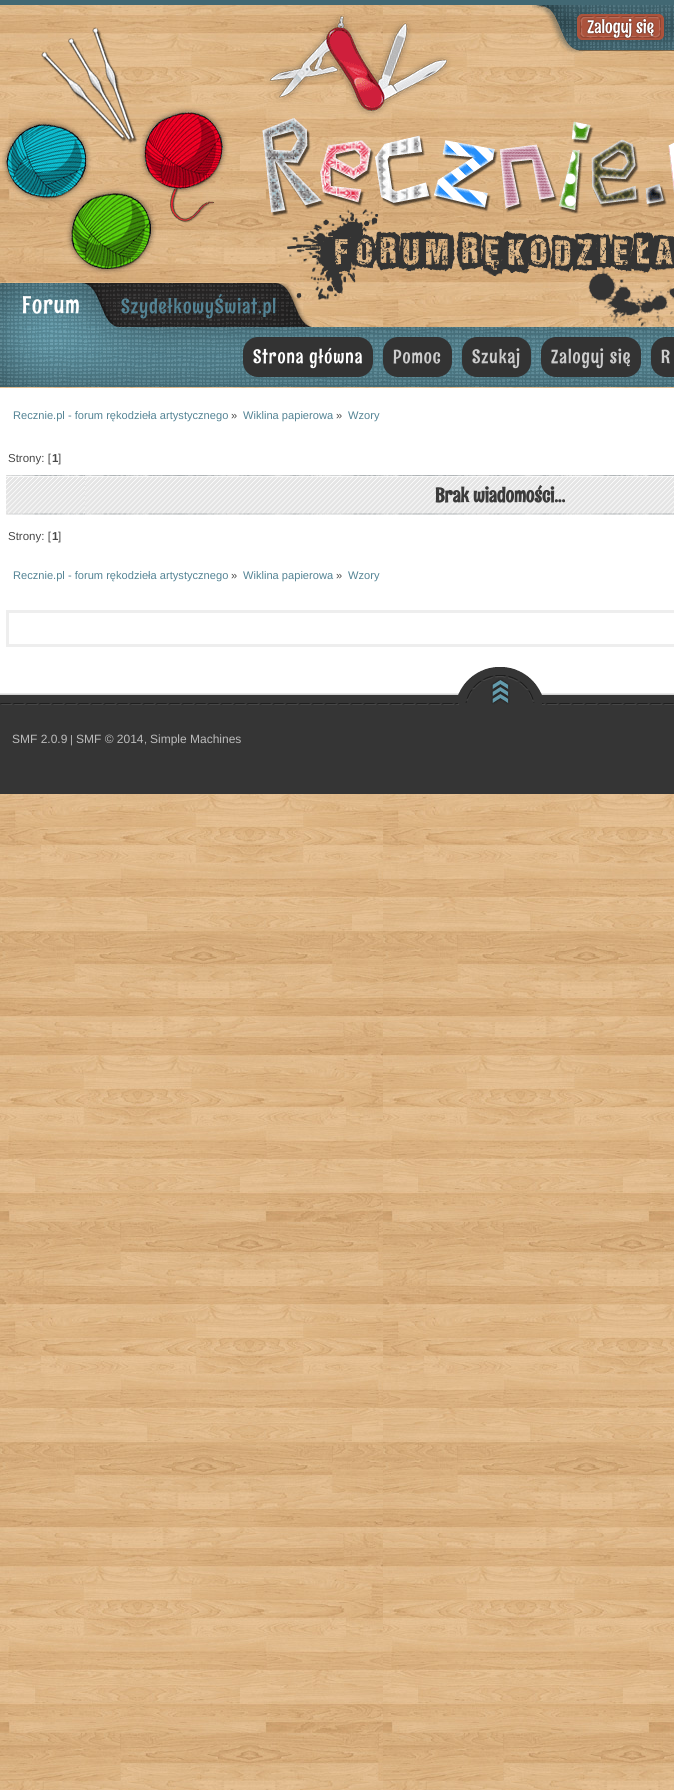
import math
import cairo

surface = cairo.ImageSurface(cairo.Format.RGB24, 674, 1790)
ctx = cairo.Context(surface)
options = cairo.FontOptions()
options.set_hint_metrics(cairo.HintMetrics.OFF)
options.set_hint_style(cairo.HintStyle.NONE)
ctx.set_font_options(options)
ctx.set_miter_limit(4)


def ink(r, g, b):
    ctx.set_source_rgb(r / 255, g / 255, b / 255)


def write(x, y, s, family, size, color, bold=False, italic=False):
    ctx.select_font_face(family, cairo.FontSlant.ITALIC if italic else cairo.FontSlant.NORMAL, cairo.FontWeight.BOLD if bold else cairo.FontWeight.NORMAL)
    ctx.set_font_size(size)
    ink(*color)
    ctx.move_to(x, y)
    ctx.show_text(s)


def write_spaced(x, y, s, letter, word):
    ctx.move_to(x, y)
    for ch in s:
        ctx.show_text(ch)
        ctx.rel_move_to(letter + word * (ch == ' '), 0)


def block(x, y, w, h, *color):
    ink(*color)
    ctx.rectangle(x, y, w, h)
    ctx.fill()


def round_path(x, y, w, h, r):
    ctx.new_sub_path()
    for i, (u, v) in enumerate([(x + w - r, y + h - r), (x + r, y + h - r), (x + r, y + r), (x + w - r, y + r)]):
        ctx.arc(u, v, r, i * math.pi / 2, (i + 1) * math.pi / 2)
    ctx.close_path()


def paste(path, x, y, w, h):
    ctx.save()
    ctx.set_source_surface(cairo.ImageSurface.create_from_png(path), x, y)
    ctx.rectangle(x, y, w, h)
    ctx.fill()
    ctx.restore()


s1 = dict(family="Liberation Sans", size=11.1, color=(83, 131, 148))
s2 = dict(family="Liberation Sans", size=11.1, color=(72, 72, 72))
s3 = dict(family="Liberation Sans", size=11.5, color=(72, 72, 72))
s4 = dict(family="Liberation Sans", size=11.5, color=(72, 72, 72), bold=True)
s5 = dict(family="Rum Raisin", size=20, color=(59, 59, 59), bold=True)
s6 = dict(family="Liberation Sans", size=12, color=(188, 188, 188))
s7 = dict(family="Liberation Sans", size=11, color=(188, 188, 188))

ink(255, 255, 255)
ctx.paint()
paste("pic1.png", 0, 5, 674, 1785)
block(0, 0, 674, 5, 66, 104, 115)
paste("pic4.png", 2, 14, 672, 313)
paste("pic2.png", 532, 5, 142, 49)
paste("pic3.png", 577, 14, 87, 26)
paste("pic5.png", 0, 283, 312, 44)
ctx.select_font_face("Rum Raisin")
ctx.set_font_size(24)
ink(255, 255, 255)
write_spaced(22, 313, "Forum", 1, 0)
ctx.set_font_size(20)
ink(83, 131, 148)
write_spaced(121, 313, "SzydełkowyŚwiat.pl", 1, 0)
paste("pic6.png", 0, 327, 674, 60)
ink(51, 51, 51)
round_path(243, 337, 130, 40, 15)
ctx.fill()
ctx.set_font_size(19)
ink(255, 255, 255)
write_spaced(253, 363, "Strona główna", 1, 0)
ink(51, 51, 51)
round_path(383, 337, 69, 40, 15)
ctx.fill()
ink(204, 204, 204)
write_spaced(393, 363, "Pomoc", 1, 0)
ink(51, 51, 51)
round_path(462, 337, 69, 40, 15)
ctx.fill()
ink(204, 204, 204)
write_spaced(472, 363, "Szukaj", 1, 0)
ink(51, 51, 51)
round_path(541, 337, 100, 40, 15)
ctx.fill()
ink(204, 204, 204)
write_spaced(551, 363, "Zaloguj się", 1, 0)
ink(51, 51, 51)
round_path(651, 337, 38, 40, 15)
ctx.fill()
ink(204, 204, 204)
write_spaced(661, 363, "R", 1, 0)
block(0, 388, 674, 307, 255, 255, 255)
write(13, 419, "Recznie.pl - forum rękodzieła artystycznego", **s1)
write(231, 419, "»", **s2)
write(243, 419, "Wiklina papierowa", **s1)
write(336, 419, "»", **s2)
write(348, 419, "Wzory", **s1)
write(8, 462, "Strony: [", **s3)
write(52, 462, "1", **s4)
write(58, 462, "]", **s3)
paste("pic7.png", 6, 475, 79, 40)
paste("pic8.png", 85, 475, 589, 40)
write(435, 502, "Brak wiadomości...", **s5)
write(8, 540, "Strony: [", **s3)
write(52, 540, "1", **s4)
write(58, 540, "]", **s3)
write(13, 579, "Recznie.pl - forum rękodzieła artystycznego", **s1)
write(231, 579, "»", **s2)
write(243, 579, "Wiklina papierowa", **s1)
write(336, 579, "»", **s2)
write(348, 579, "Wzory", **s1)
ctx.rectangle(7.5, 611.5, 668, 34)
ink(238, 238, 238)
ctx.set_line_width(3)
ctx.stroke()
paste("pic9.png", 0, 693, 674, 12)
paste("pic10.png", 458, 667, 84, 38)
block(0, 705, 674, 89, 53, 53, 53)
write(12, 743, "SMF 2.0.9", **s6)
write(70, 743, "|", **s7)
write(76, 743, "SMF © 2014", **s6)
write(144, 743, ",", **s7)
write(150, 743, "Simple Machines", **s6)
surface.write_to_png("screenshot.png")
